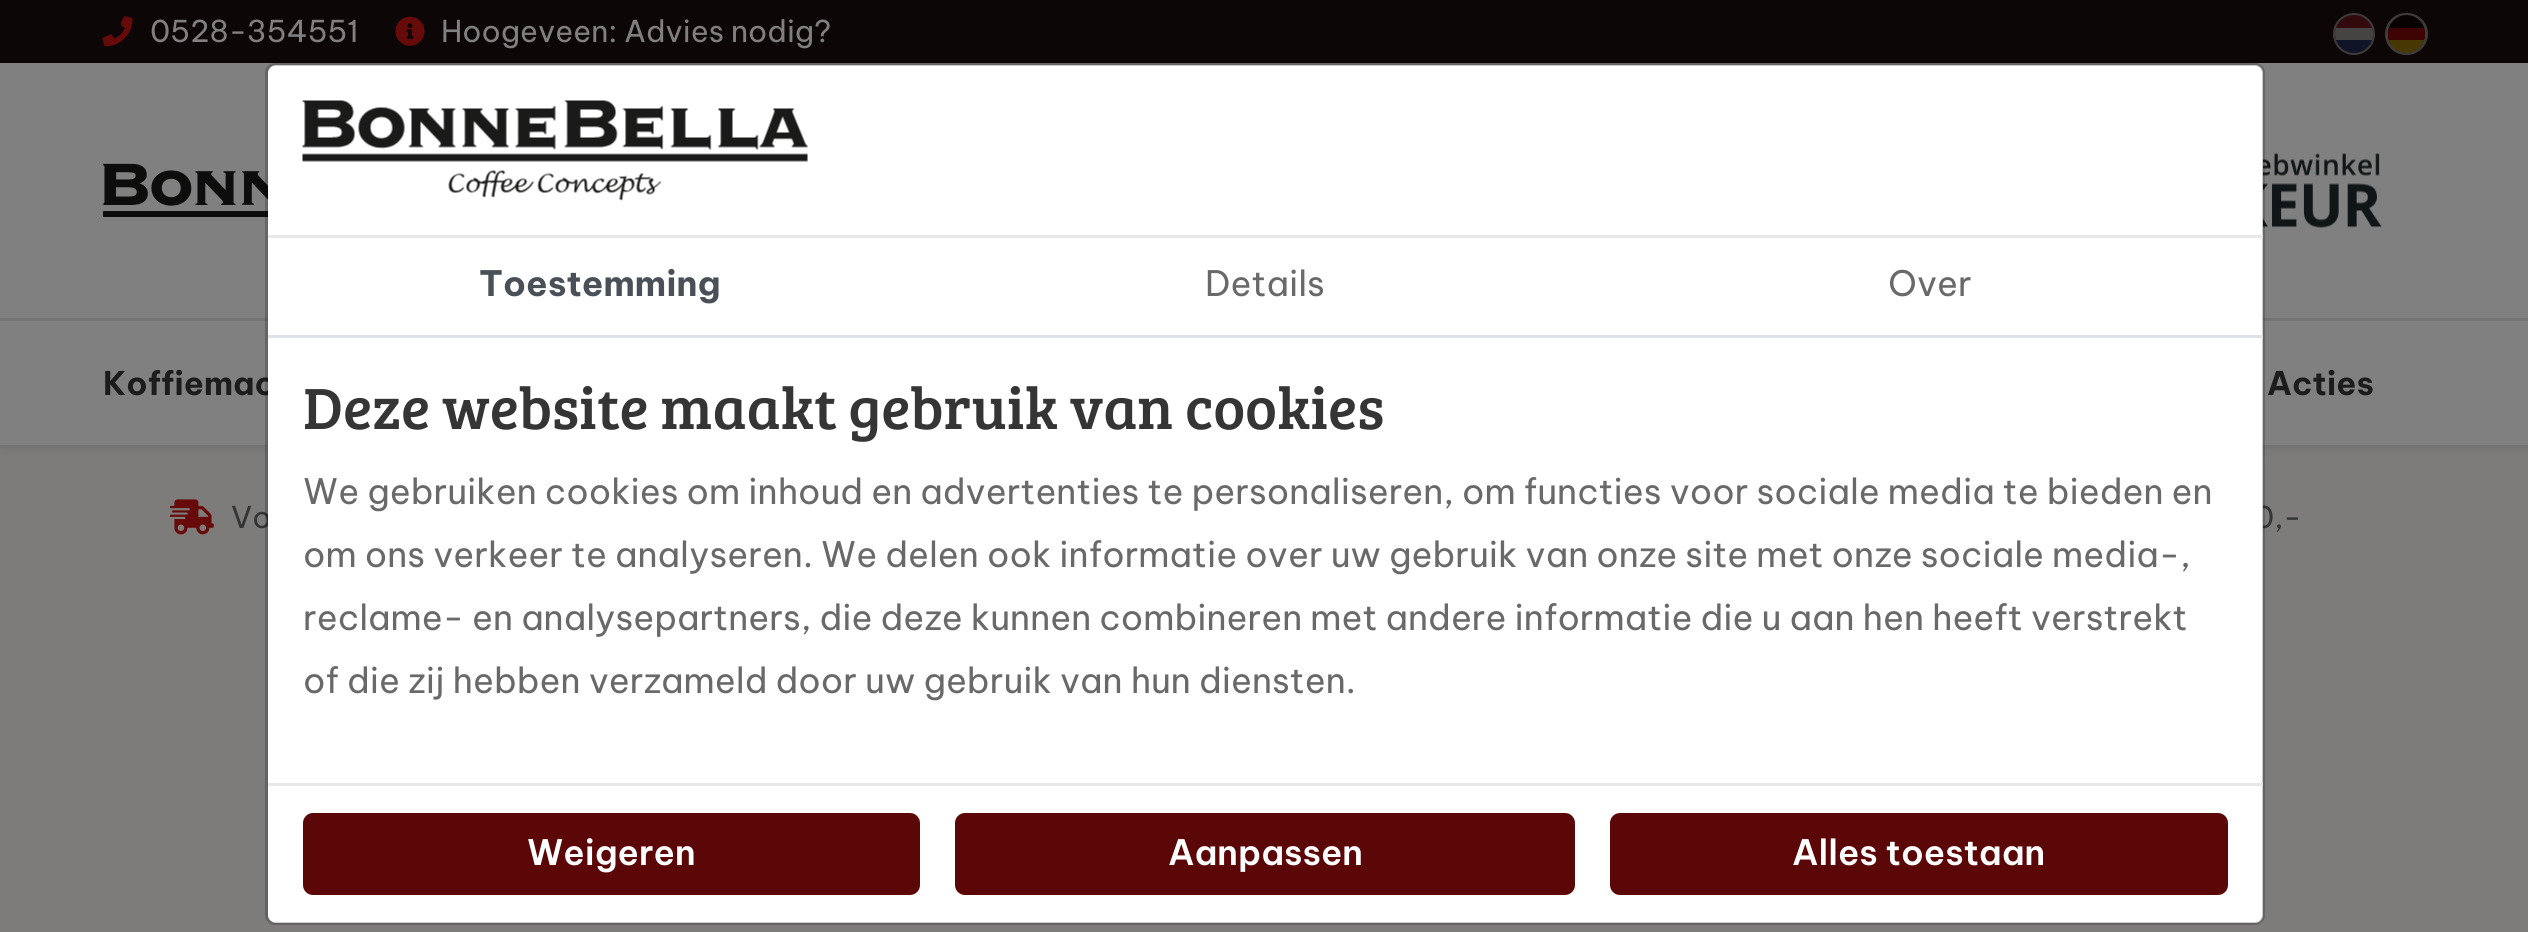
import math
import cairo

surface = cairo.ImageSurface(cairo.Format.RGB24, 2528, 932)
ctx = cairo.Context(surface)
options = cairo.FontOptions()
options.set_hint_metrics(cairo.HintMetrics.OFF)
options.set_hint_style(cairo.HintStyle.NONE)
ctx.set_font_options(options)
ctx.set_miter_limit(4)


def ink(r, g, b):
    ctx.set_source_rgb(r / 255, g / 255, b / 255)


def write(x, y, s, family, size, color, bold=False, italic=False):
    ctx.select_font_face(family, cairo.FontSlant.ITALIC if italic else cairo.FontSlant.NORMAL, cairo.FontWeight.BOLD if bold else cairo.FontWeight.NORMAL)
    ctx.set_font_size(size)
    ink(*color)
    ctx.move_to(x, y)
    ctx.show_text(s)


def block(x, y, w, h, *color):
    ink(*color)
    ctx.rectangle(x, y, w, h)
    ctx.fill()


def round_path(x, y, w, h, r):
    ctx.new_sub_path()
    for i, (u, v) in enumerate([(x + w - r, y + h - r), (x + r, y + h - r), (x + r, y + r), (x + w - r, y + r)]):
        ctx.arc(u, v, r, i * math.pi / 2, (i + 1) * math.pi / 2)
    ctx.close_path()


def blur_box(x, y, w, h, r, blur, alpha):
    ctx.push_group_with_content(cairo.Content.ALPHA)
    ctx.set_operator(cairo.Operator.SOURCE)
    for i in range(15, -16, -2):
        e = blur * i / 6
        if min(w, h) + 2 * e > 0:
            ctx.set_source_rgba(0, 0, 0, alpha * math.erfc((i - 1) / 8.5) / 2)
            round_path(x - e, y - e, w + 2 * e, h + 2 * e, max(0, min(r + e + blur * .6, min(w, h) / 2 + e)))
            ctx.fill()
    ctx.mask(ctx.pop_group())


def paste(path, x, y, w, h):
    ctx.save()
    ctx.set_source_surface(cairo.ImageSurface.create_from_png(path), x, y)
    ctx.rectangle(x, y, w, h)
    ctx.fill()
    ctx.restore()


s1 = dict(family="Be Vietnam Pro", size=30, color=(128, 128, 128))
s2 = dict(family="Be Vietnam Pro", size=32.5, color=(28, 28, 28), bold=True)
s3 = dict(family="Be Vietnam Pro", size=30, color=(53, 53, 53))
s4 = dict(family="Be Vietnam Pro", size=35, color=(73, 80, 87), bold=True)
s5 = dict(family="Be Vietnam Pro", size=35, color=(105, 105, 105))
s6 = dict(family="Bree Serif", size=60, color=(53, 53, 53))
s7 = dict(family="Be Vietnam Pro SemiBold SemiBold", size=35, color=(255, 255, 255))

ink(126, 124, 123)
ctx.paint()
block(0, 0, 2528, 63, 13, 6, 6)
paste("pic1.png", 102, 16, 31, 31)
write(150, 42, "0528-354551", **s1)
paste("pic2.png", 395, 16, 30, 30)
write(441, 42, "Hoogeveen: Advies nodig?", **s1)
ctx.new_path()
ctx.arc(2354, 34, 19.5, 0, 2 * math.pi)
ink(62, 59, 59)
ctx.set_line_width(3)
ctx.stroke()
round_path(2386.5, 14.5, 40, 39, 19.5)
ctx.stroke()
ink(15, 21, 38)
ctx.arc(2354, 34, 19, 0, 2 * math.pi)
ctx.fill()
ctx.save()
round_path(2335, 15, 38, 38, 19)
ctx.clip()
ink(70, 67, 67)
ctx.new_path()
ctx.move_to(2354, 15)
ctx.curve_to(2364.5, 15, 2373, 23.5, 2373, 34)
ctx.line_to(2373, 40)
ctx.line_to(2335, 40)
ctx.line_to(2335, 34)
ctx.curve_to(2335, 23.5, 2343.5, 15, 2354, 15)
ctx.close_path()
ctx.fill()
block(2336, 15, 36, 13, 50, 10, 13)
ctx.restore()
ctx.save()
round_path(2388, 15, 37, 38, 18.5)
ctx.clip()
block(2388, 15, 37, 13, 7, 3, 3)
block(2388, 28, 37, 12, 62, 3, 3)
block(2388, 40, 37, 13, 70, 55, 3)
ctx.restore()
ink(0, 0, 0)
blur_box(0, 318, 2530, 130, 0, 6, 0.1)
block(0, 63, 2528, 255, 128, 128, 128)
paste("pic3.png", 103, 163, 165, 54)
paste("pic4.png", 2263, 139, 119, 102)
block(0, 321, 2528, 124, 128, 128, 128)
block(0, 318, 2528, 3, 116, 116, 116)
block(0, 445, 2528, 3, 116, 116, 116)
write(103, 395, "Koffiemac", **s2)
write(2267, 395, "Acties", **s2)
write(231, 528, "Vo", **s3)
write(2254, 528, "0,-", **s3)
ink(255, 255, 255)
round_path(268, 65, 1995, 858, 8)
ctx.fill()
round_path(266.5, 64.5, 1997, 859, 8.5)
ctx.set_source_rgba(0, 0, 0, 0.2)
ctx.stroke()
block(268, 235, 1995, 3, 232, 232, 232)
paste("pic5.png", 302, 100, 506, 101)
block(268, 335, 1995, 3, 222, 226, 230)
write(479, 296, "Toestemming", **s4)
write(1205, 296, "Details", **s5)
write(1888, 296, "Over", **s5)
write(303, 429, "Deze website maakt gebruik van cookies", **s6)
write(303, 504, "We gebruiken cookies om inhoud en advertenties te personaliseren, om functies voor sociale media te bieden en", **s5)
write(303, 567, "om ons verkeer te analyseren. We delen ook informatie over uw gebruik van onze site met onze sociale media-,", **s5)
write(303, 630, "reclame- en analysepartners, die deze kunnen combineren met andere informatie die u aan hen heeft verstrekt", **s5)
write(303, 693, "of die zij hebben verzameld door uw gebruik van hun diensten.", **s5)
block(268, 783, 1995, 3, 232, 232, 232)
ink(91, 7, 7)
round_path(304.5, 814.5, 614, 79, 8.5)
ctx.fill_preserve()
ctx.stroke()
write(527, 865, "Weigeren", **s7)
ink(91, 7, 7)
round_path(956.5, 814.5, 617, 79, 8.5)
ctx.fill_preserve()
ctx.stroke()
write(1168, 865, "Aanpassen", **s7)
ink(91, 7, 7)
round_path(1611.5, 814.5, 615, 79, 8.5)
ctx.fill_preserve()
ctx.stroke()
write(1792, 865, "Alles toestaan", **s7)
paste("pic6.png", 170, 499, 44, 36)
surface.write_to_png("screenshot.png")
